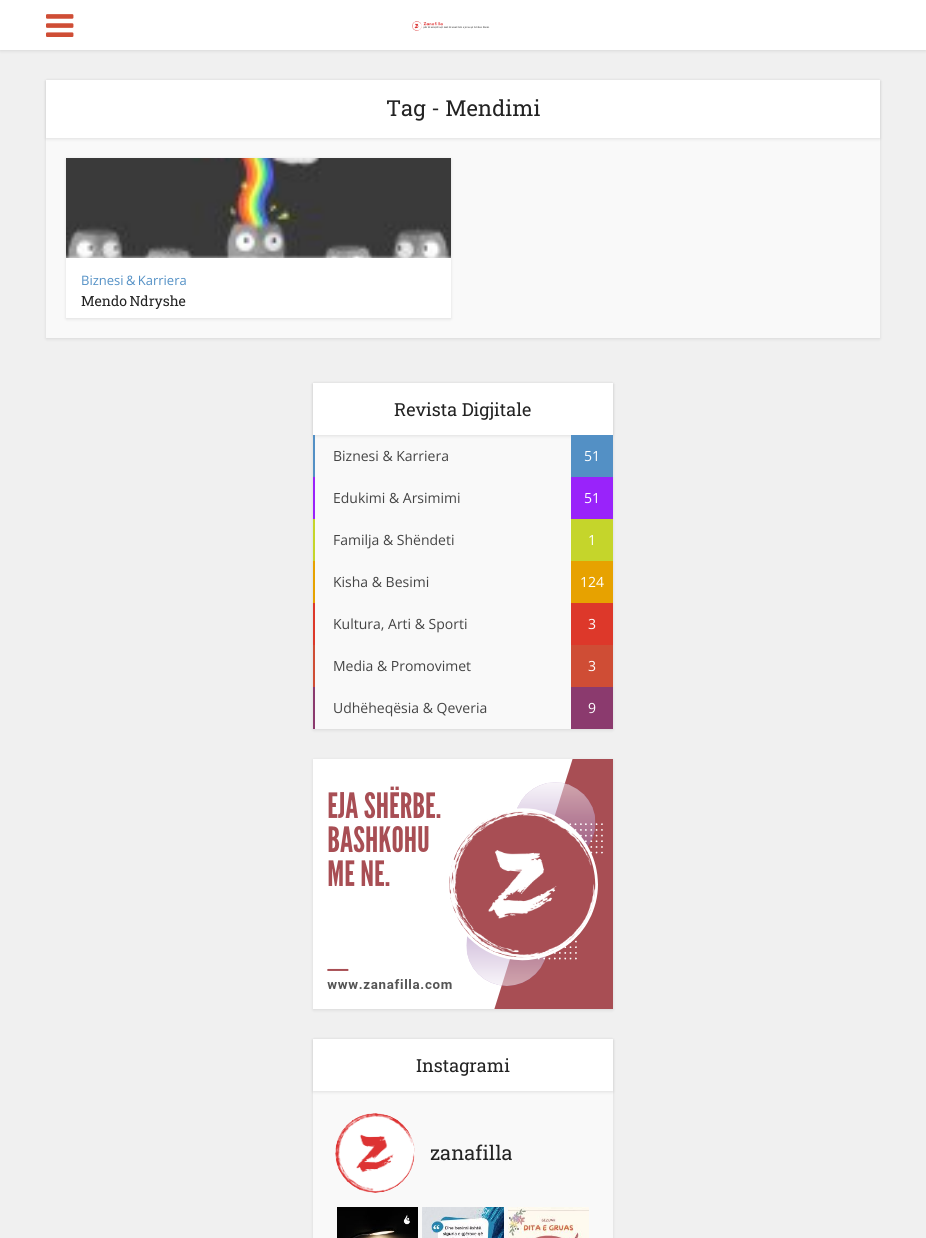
import math
import cairo

surface = cairo.ImageSurface(cairo.Format.RGB24, 926, 1238)
ctx = cairo.Context(surface)
options = cairo.FontOptions()
options.set_hint_metrics(cairo.HintMetrics.OFF)
options.set_hint_style(cairo.HintStyle.NONE)
ctx.set_font_options(options)
ctx.set_miter_limit(4)


def ink(r, g, b):
    ctx.set_source_rgb(r / 255, g / 255, b / 255)


def write(x, y, s, family, size, color, bold=False, italic=False):
    ctx.select_font_face(family, cairo.FontSlant.ITALIC if italic else cairo.FontSlant.NORMAL, cairo.FontWeight.BOLD if bold else cairo.FontWeight.NORMAL)
    ctx.set_font_size(size)
    ink(*color)
    ctx.move_to(x, y)
    ctx.show_text(s)


def write_spaced(x, y, s, letter, word):
    ctx.move_to(x, y)
    for ch in s:
        ctx.show_text(ch)
        ctx.rel_move_to(letter + word * (ch == ' '), 0)


def block(x, y, w, h, *color):
    ink(*color)
    ctx.rectangle(x, y, w, h)
    ctx.fill()


def round_path(x, y, w, h, r):
    ctx.new_sub_path()
    for i, (u, v) in enumerate([(x + w - r, y + h - r), (x + r, y + h - r), (x + r, y + r), (x + w - r, y + r)]):
        ctx.arc(u, v, r, i * math.pi / 2, (i + 1) * math.pi / 2)
    ctx.close_path()


def blur_box(x, y, w, h, r, blur, alpha):
    ctx.push_group_with_content(cairo.Content.ALPHA)
    ctx.set_operator(cairo.Operator.SOURCE)
    for i in range(15, -16, -2):
        e = blur * i / 6
        if min(w, h) + 2 * e > 0:
            ctx.set_source_rgba(0, 0, 0, alpha * math.erfc((i - 1) / 8.5) / 2)
            round_path(x - e, y - e, w + 2 * e, h + 2 * e, max(0, min(r + e + blur * .6, min(w, h) / 2 + e)))
            ctx.fill()
    ctx.mask(ctx.pop_group())


def paste(path, x, y, w, h):
    ctx.save()
    ctx.set_source_surface(cairo.ImageSurface.create_from_png(path), x, y)
    ctx.rectangle(x, y, w, h)
    ctx.fill()
    ctx.restore()


s1 = dict(family="Roboto Slab", size=22, color=(35, 35, 35))
s2 = dict(family="Roboto Slab", size=18, color=(35, 35, 35))
s3 = dict(family="Open Sans", size=14, color=(68, 68, 68))
s4 = dict(family="Open Sans", size=14, color=(255, 255, 255))
s5 = dict(family="Roboto Slab", size=20, color=(35, 35, 35))

ink(240, 240, 240)
ctx.paint()
ink(0, 0, 0)
blur_box(0, 1, 926, 50, 0, 1.5, 0.1)
block(0, 0, 926, 50, 255, 255, 255)
paste("pic1.png", 46, 14, 28, 23)
paste("pic2.png", 412, 21, 78, 10)
ink(0, 0, 0)
blur_box(46, 81, 834, 258, 0, 1.5, 0.1)
block(46, 138, 834, 200, 249, 249, 249)
ink(0, 0, 0)
blur_box(46, 81, 834, 58, 0, 1.5, 0.1)
block(46, 80, 834, 58, 255, 255, 255)
write(386, 116, "Tag - Mendimi", **s1)
ink(0, 0, 0)
blur_box(66, 159, 385, 160, 0, 1.5, 0.1)
block(66, 255, 385, 63, 255, 255, 255)
paste("pic3.png", 66, 158, 385, 100)
ctx.select_font_face("Open Sans")
ctx.set_font_size(13)
ink(83, 144, 197)
write_spaced(81, 285, "Biznesi & Karriera", 0, -1)
ctx.select_font_face("Roboto Slab")
ctx.set_font_size(14)
ink(35, 35, 35)
write_spaced(81, 306, "Mendo Ndryshe", 0, -1)
ink(0, 0, 0)
blur_box(313, 384, 300, 346, 0, 1.5, 0.1)
block(315, 435, 256, 294, 249, 249, 249)
ink(0, 0, 0)
blur_box(313, 384, 300, 52, 0, 1.5, 0.1)
block(313, 383, 300, 52, 255, 255, 255)
write(394, 416, "Revista Digjitale", **s2)
block(313, 435, 2, 42, 83, 144, 197)
write(333, 461, "Biznesi & Karriera", **s3)
block(571, 435, 42, 42, 83, 144, 197)
write(584, 461, "51", **s4)
block(313, 477, 2, 42, 153, 35, 250)
write(333, 503, "Edukimi & Arsimimi", **s3)
block(571, 477, 42, 42, 153, 35, 250)
write(584, 503, "51", **s4)
block(313, 519, 2, 42, 197, 213, 43)
write(333, 545, "Familja & Shëndeti", **s3)
block(571, 519, 42, 42, 197, 213, 43)
write(588, 545, "1", **s4)
block(313, 561, 2, 42, 231, 162, 0)
write(333, 587, "Kisha & Besimi", **s3)
block(571, 561, 42, 42, 231, 162, 0)
write(580, 587, "124", **s4)
block(313, 603, 2, 42, 221, 56, 42)
write(333, 629, "Kultura, Arti & Sporti", **s3)
block(571, 603, 42, 42, 221, 56, 42)
write(588, 629, "3", **s4)
block(313, 645, 2, 42, 207, 77, 53)
write(333, 671, "Media & Promovimet", **s3)
block(571, 645, 42, 42, 207, 77, 53)
write(588, 671, "3", **s4)
block(313, 687, 2, 42, 139, 58, 110)
write(333, 713, "Udhëheqësia & Qeveria", **s3)
block(571, 687, 42, 42, 139, 58, 110)
write(588, 713, "9", **s4)
ink(0, 0, 0)
blur_box(313, 760, 300, 250, 0, 1.5, 0.1)
paste("pic4.png", 313, 759, 300, 250)
blur_box(313, 1040, 300, 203, 0, 1.5, 0.1)
block(313, 1091, 300, 147, 249, 249, 249)
ink(0, 0, 0)
blur_box(313, 1040, 300, 52, 0, 1.5, 0.1)
block(313, 1039, 300, 52, 255, 255, 255)
write(416, 1072, "Instagrami", **s2)
paste("pic5.png", 335, 1113, 80, 80)
write(430, 1160, "zanafilla", **s5)
paste("pic6.png", 337, 1207, 81, 31)
paste("pic7.png", 422, 1207, 82, 31)
paste("pic8.png", 508, 1207, 81, 31)
surface.write_to_png("screenshot.png")
